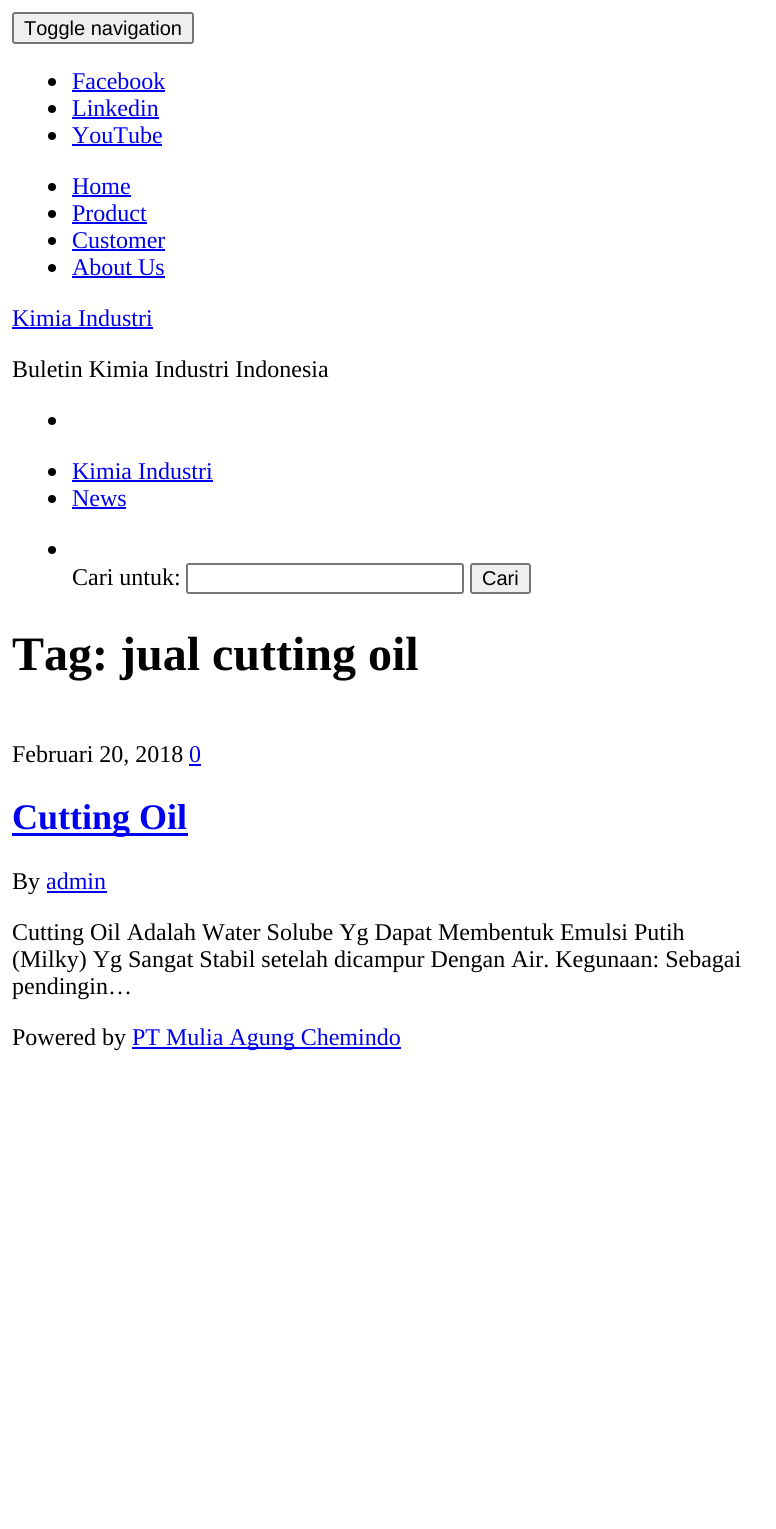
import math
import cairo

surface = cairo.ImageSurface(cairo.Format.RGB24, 776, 1529)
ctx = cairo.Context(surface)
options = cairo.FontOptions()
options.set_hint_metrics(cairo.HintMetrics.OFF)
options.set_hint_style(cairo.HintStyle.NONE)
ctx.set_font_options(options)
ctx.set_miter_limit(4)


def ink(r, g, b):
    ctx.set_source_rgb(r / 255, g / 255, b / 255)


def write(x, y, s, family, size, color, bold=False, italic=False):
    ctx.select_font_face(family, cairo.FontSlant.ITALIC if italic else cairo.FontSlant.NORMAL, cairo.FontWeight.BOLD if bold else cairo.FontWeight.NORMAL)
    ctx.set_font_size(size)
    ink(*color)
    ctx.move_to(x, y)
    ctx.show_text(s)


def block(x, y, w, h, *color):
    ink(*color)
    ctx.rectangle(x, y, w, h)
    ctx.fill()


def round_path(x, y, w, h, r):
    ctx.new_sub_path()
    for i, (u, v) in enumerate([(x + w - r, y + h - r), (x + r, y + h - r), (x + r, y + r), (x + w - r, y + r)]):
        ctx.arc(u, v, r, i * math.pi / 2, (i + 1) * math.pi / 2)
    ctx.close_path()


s1 = dict(family="Liberation Sans", size=20, color=(0, 0, 0))
s2 = dict(family="Liberation Serif", size=24, color=(0, 0, 238))
s3 = dict(family="Liberation Serif", size=24, color=(0, 0, 0))
s4 = dict(family="Liberation Serif", size=48, color=(0, 0, 0), bold=True)
s5 = dict(family="Liberation Serif", size=36, color=(0, 0, 238), bold=True)

ink(255, 255, 255)
ctx.paint()
ink(239, 239, 239)
round_path(13, 13, 180, 30, 2)
ctx.fill_preserve()
ink(118, 118, 118)
ctx.stroke()
write(24, 35, "Toggle navigation", **s1)
ctx.new_path()
ctx.arc(52, 82, 4, 0, 2 * math.pi)
ctx.fill()
write(72, 89, "Facebook", **s2)
block(72, 90, 93, 2, 0, 0, 238)
ink(0, 0, 0)
ctx.new_path()
ctx.arc(52, 109, 4, 0, 2 * math.pi)
ctx.fill()
write(72, 116, "Linkedin", **s2)
block(72, 117, 87, 2, 0, 0, 238)
ink(0, 0, 0)
ctx.new_path()
ctx.arc(52, 136, 4, 0, 2 * math.pi)
ctx.fill()
write(72, 143, "YouTube", **s2)
block(72, 144, 90, 2, 0, 0, 238)
ink(0, 0, 0)
ctx.new_path()
ctx.arc(52, 187, 4, 0, 2 * math.pi)
ctx.fill()
write(72, 194, "Home", **s2)
block(72, 195, 59, 2, 0, 0, 238)
ink(0, 0, 0)
ctx.new_path()
ctx.arc(52, 214, 4, 0, 2 * math.pi)
ctx.fill()
write(72, 221, "Product", **s2)
block(72, 222, 75, 2, 0, 0, 238)
ink(0, 0, 0)
ctx.new_path()
ctx.arc(52, 241, 4, 0, 2 * math.pi)
ctx.fill()
write(72, 248, "Customer", **s2)
block(72, 249, 93, 2, 0, 0, 238)
ink(0, 0, 0)
ctx.new_path()
ctx.arc(52, 268, 4, 0, 2 * math.pi)
ctx.fill()
write(72, 275, "About Us", **s2)
block(72, 276, 93, 2, 0, 0, 238)
write(12, 326, "Kimia Industri", **s2)
block(12, 327, 141, 2, 0, 0, 238)
write(12, 377, "Buletin Kimia Industri Indonesia", **s3)
ctx.new_path()
ctx.arc(52, 421, 4, 0, 2 * math.pi)
ctx.fill()
ctx.arc(52, 472, 4, 0, 2 * math.pi)
ctx.fill()
write(72, 479, "Kimia Industri", **s2)
block(72, 480, 141, 2, 0, 0, 238)
ink(0, 0, 0)
ctx.new_path()
ctx.arc(52, 499, 4, 0, 2 * math.pi)
ctx.fill()
write(72, 506, "News", **s2)
block(72, 507, 54, 2, 0, 0, 238)
ink(0, 0, 0)
ctx.new_path()
ctx.arc(52, 550, 4, 0, 2 * math.pi)
ctx.fill()
write(72, 585, "Cari untuk:", **s3)
round_path(187, 564, 276, 29, 2)
ink(118, 118, 118)
ctx.stroke()
ink(239, 239, 239)
round_path(471, 564, 59, 29, 2)
ctx.fill_preserve()
ink(118, 118, 118)
ctx.stroke()
write(482, 585, "Cari", **s1)
write(12, 670, "Tag: jual cutting oil", **s4)
write(12, 762, "Februari 20, 2018", **s3)
write(189, 762, "0", **s2)
block(189, 764, 12, 2, 0, 0, 238)
block(12, 833, 176, 3, 0, 0, 238)
write(12, 829, "Cutting Oil", **s5)
write(12, 889, "By", **s3)
write(46, 889, "admin", **s2)
block(47, 891, 60, 2, 0, 0, 238)
write(12, 940, "Cutting Oil Adalah Water Solube Yg Dapat Membentuk Emulsi Putih", **s3)
write(12, 967, "(Milky) Yg Sangat Stabil setelah dicampur Dengan Air. Kegunaan: Sebagai", **s3)
write(12, 994, "pendingin…", **s3)
write(12, 1045, "Powered by", **s3)
block(132, 1047, 269, 2, 0, 0, 238)
write(132, 1045, "PT Mulia Agung Chemindo", **s2)
surface.write_to_png("screenshot.png")
